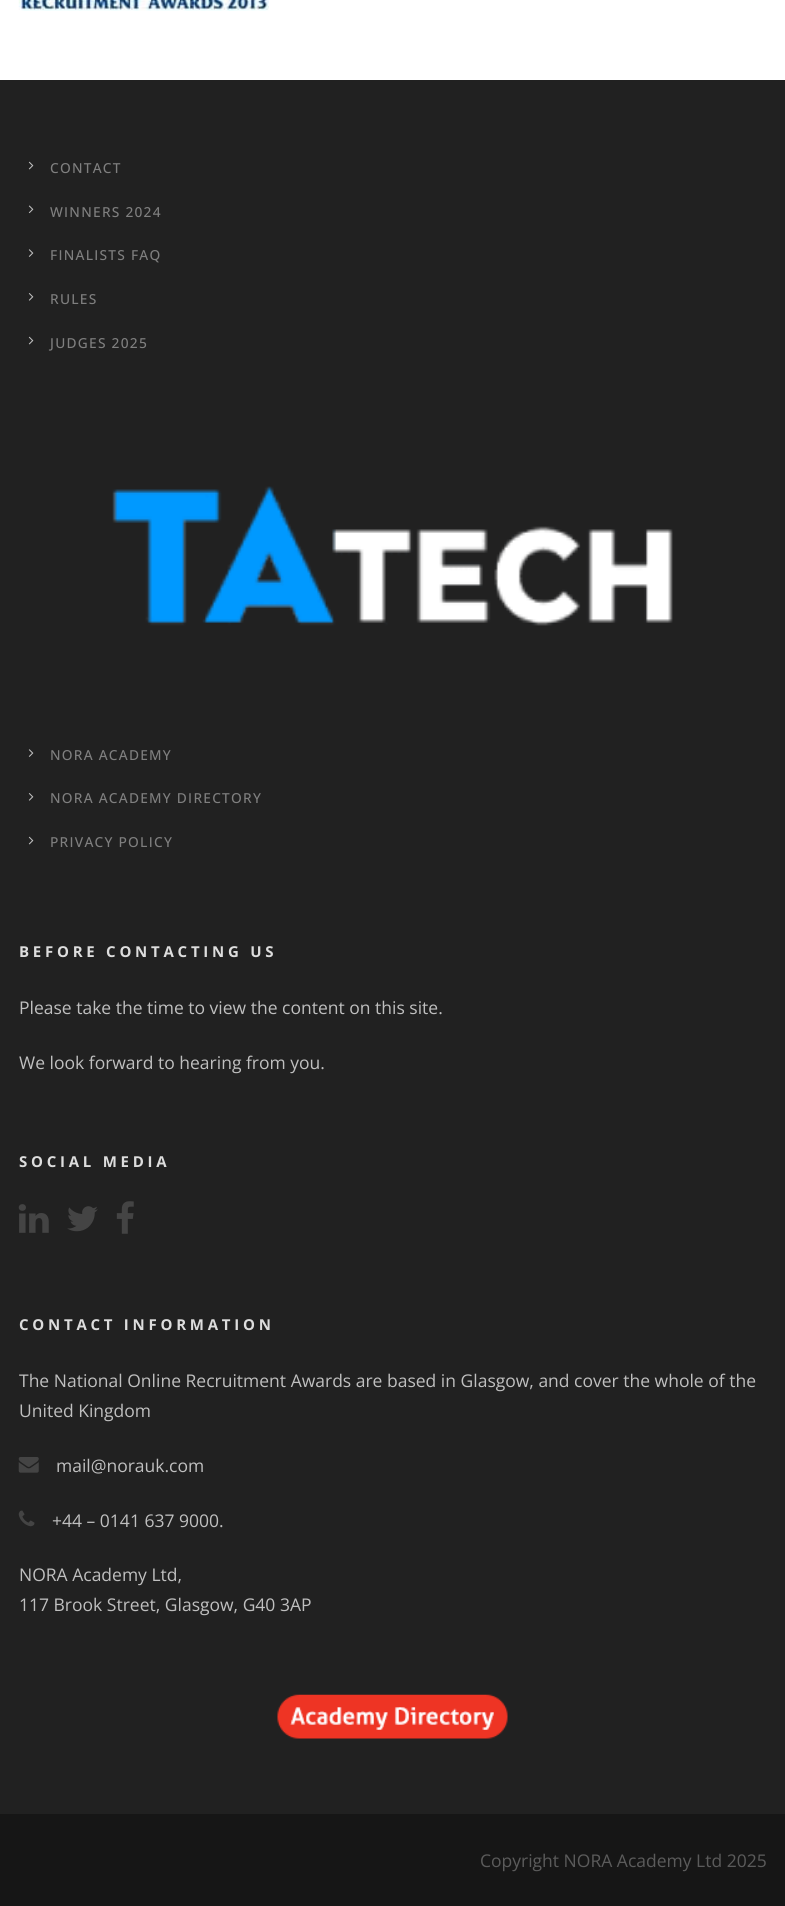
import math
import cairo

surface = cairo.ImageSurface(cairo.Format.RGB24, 785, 1906)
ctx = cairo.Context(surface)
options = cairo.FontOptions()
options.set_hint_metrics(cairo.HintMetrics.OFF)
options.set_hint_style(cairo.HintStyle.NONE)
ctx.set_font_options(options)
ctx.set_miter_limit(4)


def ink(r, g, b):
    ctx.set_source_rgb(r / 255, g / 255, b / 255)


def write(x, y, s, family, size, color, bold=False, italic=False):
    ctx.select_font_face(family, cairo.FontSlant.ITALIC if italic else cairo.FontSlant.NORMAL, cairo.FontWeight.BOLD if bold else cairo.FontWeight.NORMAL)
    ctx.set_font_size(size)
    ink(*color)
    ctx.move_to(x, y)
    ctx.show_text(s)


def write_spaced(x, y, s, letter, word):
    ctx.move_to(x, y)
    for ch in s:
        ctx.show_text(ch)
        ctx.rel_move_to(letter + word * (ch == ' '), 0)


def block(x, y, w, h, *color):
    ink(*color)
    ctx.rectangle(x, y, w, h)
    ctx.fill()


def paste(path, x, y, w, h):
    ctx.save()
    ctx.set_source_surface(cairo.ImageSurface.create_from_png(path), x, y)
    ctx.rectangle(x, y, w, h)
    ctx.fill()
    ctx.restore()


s1 = dict(family="Open Sans", size=17.5, color=(191, 191, 191))
s2 = dict(family="Open Sans", size=17.5, color=(91, 91, 91))

ink(255, 255, 255)
ctx.paint()
paste("pic1.png", 18, 0, 251, 11)
block(0, 80, 785, 1734, 33, 33, 33)
paste("pic2.png", 28, 161, 6, 9)
ctx.select_font_face("Open Sans Medium")
ctx.set_font_size(13.75)
ink(127, 127, 127)
write_spaced(50, 173, "CONTACT", 1.25, 0)
paste("pic3.png", 28, 205, 6, 9)
write_spaced(50, 217, "WINNERS 2024", 1.25, 0)
paste("pic4.png", 28, 249, 6, 8)
write_spaced(50, 260, "FINALISTS FAQ", 1.25, 0)
paste("pic5.png", 28, 293, 6, 8)
write_spaced(50, 304, "RULES", 1.25, 0)
paste("pic2.png", 28, 336, 6, 9)
write_spaced(50, 348, "JUDGES 2025", 1.25, 0)
paste("pic6.png", 112, 486, 561, 140)
paste("pic4.png", 28, 749, 6, 8)
write_spaced(50, 760, "NORA ACADEMY", 1.25, 0)
paste("pic5.png", 28, 793, 6, 8)
write_spaced(50, 803, "NORA ACADEMY DIRECTORY", 1.25, 0)
paste("pic2.png", 28, 836, 6, 9)
write_spaced(50, 847, "PRIVACY POLICY", 1.25, 0)
ctx.select_font_face("Open Sans", cairo.FontSlant.NORMAL, cairo.FontWeight.BOLD)
ctx.set_font_size(15)
ink(221, 221, 221)
write_spaced(19, 957, "BEFORE CONTACTING US", 3.75, 0)
write(19, 1014, "Please take the time to view the content on this site.", **s1)
write(19, 1069, "We look forward to hearing from you.", **s1)
ctx.select_font_face("Open Sans", cairo.FontSlant.NORMAL, cairo.FontWeight.BOLD)
ctx.set_font_size(15)
ink(221, 221, 221)
write_spaced(19, 1167, "SOCIAL MEDIA", 3.75, 0)
paste("pic7.png", 18, 1204, 31, 29)
paste("pic8.png", 67, 1206, 31, 26)
paste("pic9.png", 116, 1201, 18, 33)
write_spaced(19, 1330, "CONTACT INFORMATION", 3.75, 0)
write(19, 1387, "The National Online Recruitment Awards are based in Glasgow, and cover the whole of the", **s1)
write(19, 1417, "United Kingdom", **s1)
paste("pic10.png", 18, 1457, 21, 16)
write(56, 1472, "mail@norauk.com", **s1)
paste("pic11.png", 18, 1510, 17, 17)
write(52, 1527, "+44 – 0141 637 9000.", **s1)
write(19, 1581, "NORA Academy Ltd,", **s1)
write(19, 1611, "117 Brook Street, Glasgow, G40 3AP", **s1)
paste("pic12.png", 277, 1694, 231, 45)
block(0, 1814, 785, 92, 22, 22, 22)
write(480, 1867, "Copyright NORA Academy Ltd 2025", **s2)
surface.write_to_png("screenshot.png")
